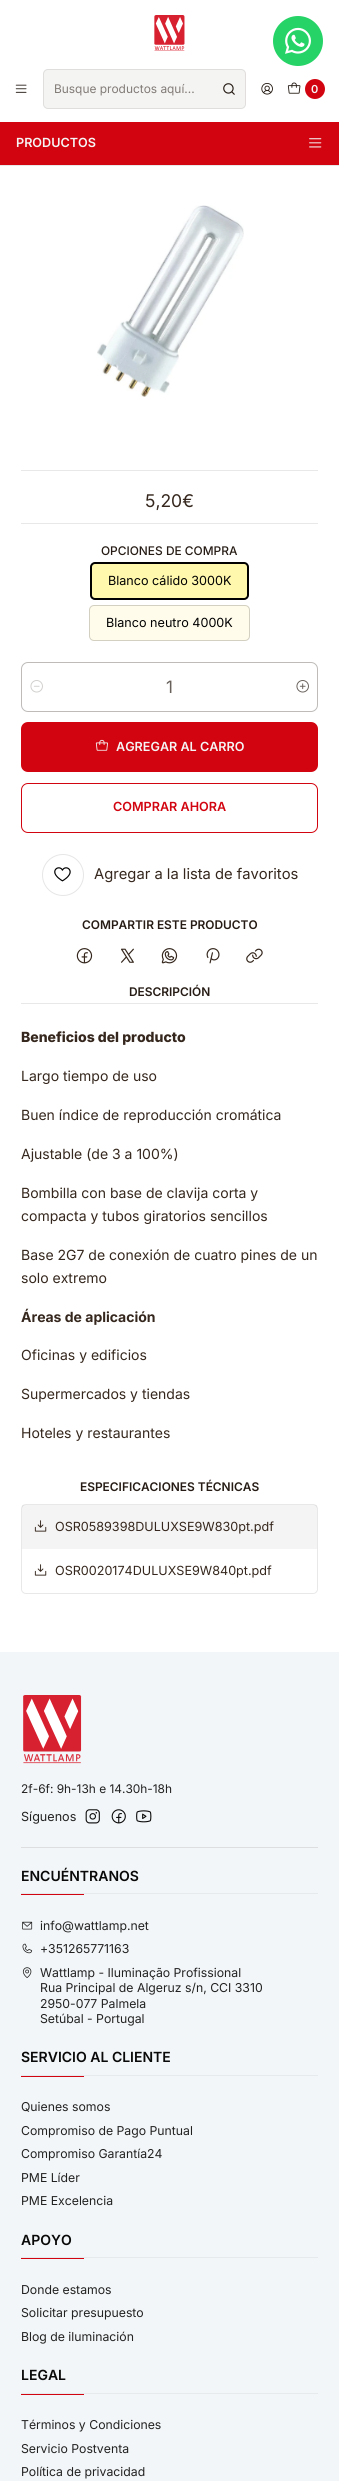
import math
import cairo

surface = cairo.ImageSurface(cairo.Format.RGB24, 339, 2481)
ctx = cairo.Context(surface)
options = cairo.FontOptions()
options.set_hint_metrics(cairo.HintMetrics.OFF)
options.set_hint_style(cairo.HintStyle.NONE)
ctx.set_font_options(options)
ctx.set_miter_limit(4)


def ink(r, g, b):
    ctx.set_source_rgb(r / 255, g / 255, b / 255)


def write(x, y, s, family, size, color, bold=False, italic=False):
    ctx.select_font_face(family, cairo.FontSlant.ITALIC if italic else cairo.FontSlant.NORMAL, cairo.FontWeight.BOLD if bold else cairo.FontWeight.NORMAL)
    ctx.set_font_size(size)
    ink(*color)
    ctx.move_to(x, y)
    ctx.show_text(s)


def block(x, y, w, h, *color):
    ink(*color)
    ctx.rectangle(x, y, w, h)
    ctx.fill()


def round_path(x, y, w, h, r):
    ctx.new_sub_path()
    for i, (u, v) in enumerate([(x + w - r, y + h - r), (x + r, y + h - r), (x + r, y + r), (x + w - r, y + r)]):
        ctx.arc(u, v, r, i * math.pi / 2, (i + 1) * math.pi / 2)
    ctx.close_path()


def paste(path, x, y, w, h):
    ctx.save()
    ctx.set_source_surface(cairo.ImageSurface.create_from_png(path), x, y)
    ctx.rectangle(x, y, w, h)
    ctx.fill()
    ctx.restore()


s1 = dict(family="Inter", size=11.9, color=(129, 123, 118))
s2 = dict(family="Inter SemiBold", size=11, color=(245, 245, 245))
s3 = dict(family="Inter SemiBold", size=12.6, color=(245, 245, 245))
s4 = dict(family="Inter", size=17.5, color=(53, 39, 29))
s5 = dict(family="Inter Medium", size=11.9, color=(38, 28, 21))
s6 = dict(family="Inter", size=12.6, color=(1, 1, 1))
s7 = dict(family="Inter", size=17, color=(103, 96, 91))
s8 = dict(family="Inter SemiBold", size=12.6, color=(210, 4, 15))
s9 = dict(family="Inter", size=14.75, color=(53, 39, 29))
s10 = dict(family="Inter SemiBold", size=11.9, color=(38, 28, 21))
s11 = dict(family="Inter ExtraBold", size=14, color=(53, 39, 29))
s12 = dict(family="Inter", size=14, color=(53, 39, 29))
s13 = dict(family="Inter", size=14, color=(53, 39, 29), bold=True)
s14 = dict(family="Inter", size=12.6, color=(53, 39, 29))
s15 = dict(family="Inter", size=11.9, color=(34, 34, 34))
s16 = dict(family="Inter", size=12.6, color=(34, 34, 34))
s17 = dict(family="Inter SemiBold", size=14, color=(9, 9, 9))
s18 = dict(family="Inter", size=12.25, color=(34, 34, 34))

ink(255, 255, 255)
ctx.paint()
ink(37, 211, 102)
ctx.arc(298, 41, 25, 0, 2 * math.pi)
ctx.fill()
paste("pic1.png", 285, 27, 26, 27)
block(0, 165, 339, 1, 233, 232, 232)
paste("pic2.png", 154, 15, 31, 36)
paste("pic3.png", 15, 84, 12, 9)
ink(244, 244, 243)
round_path(43, 69, 203, 40, 5)
ctx.fill()
round_path(43.5, 69.5, 202, 39, 4.5)
ctx.set_source_rgba(0.149, 0.11, 0.082, 0.1)
ctx.set_line_width(1)
ctx.stroke()
write(54, 93, "Busque productos aquí...", **s1)
paste("pic4.png", 223, 83, 12, 12)
paste("pic5.png", 261, 83, 12, 12)
paste("pic6.png", 287, 82, 14, 12)
ink(210, 4, 15)
ctx.arc(315, 89, 10, 0, 2 * math.pi)
ctx.fill()
write(311, 93, "0", **s2)
block(0, 122, 339, 43, 210, 4, 15)
write(16, 147, "PRODUCTOS", **s3)
paste("pic7.png", 309, 138, 13, 10)
paste("pic8.png", 97, 205, 147, 192)
block(21, 470, 297, 1, 233, 232, 232)
write(145, 507, "5,20€", **s4)
block(21, 523, 297, 1, 233, 232, 232)
write(101, 555, "OPCIONES DE COMPRA", **s5)
ink(255, 248, 173)
round_path(91, 563, 157, 36, 4)
ctx.fill_preserve()
ink(1, 1, 1)
ctx.set_line_width(2)
ctx.stroke()
write(108, 585, "Blanco cálido 3000K", **s6)
ink(255, 252, 236)
round_path(89, 605, 161, 36, 5)
ctx.fill()
round_path(89.5, 605.5, 160, 35, 4.5)
ctx.set_source_rgba(0.149, 0.11, 0.082, 0.2)
ctx.set_line_width(1)
ctx.stroke()
write(106, 627, "Blanco neutro 4000K", **s6)
round_path(21.5, 662.5, 296, 49, 6.5)
ink(190, 187, 185)
ctx.stroke()
paste("pic9.png", 30, 680, 13, 13)
write(166, 693, "1", **s7)
paste("pic10.png", 296, 680, 13, 13)
ink(210, 4, 15)
round_path(21, 722, 297, 50, 7)
ctx.fill()
paste("pic11.png", 95, 739, 13, 12)
write(116, 751, "AGREGAR AL CARRO", **s3)
round_path(21.5, 783.5, 296, 49, 6.5)
ink(210, 4, 15)
ctx.stroke()
write(113, 811, "COMPRAR AHORA", **s8)
ctx.new_path()
ctx.arc(63, 875, 20.5, 0, 2 * math.pi)
ink(230, 230, 230)
ctx.stroke()
paste("pic12.png", 54, 867, 17, 15)
write(94, 879, "Agregar a la lista de favoritos", **s9)
write(82, 929, "COMPARTIR ESTE PRODUCTO", **s10)
paste("pic13.png", 76, 948, 17, 16)
paste("pic14.png", 121, 948, 13, 15)
paste("pic15.png", 161, 948, 17, 16)
paste("pic16.png", 206, 948, 14, 16)
paste("pic17.png", 246, 948, 17, 15)
block(21, 1003, 297, 1, 233, 232, 232)
write(129, 996, "DESCRIPCIÓN", **s10)
write(21, 1042, "Beneficios del producto", **s11)
write(21, 1081, "Largo tiempo de uso", **s12)
write(21, 1120, "Buen índice de reproducción cromática", **s12)
write(21, 1159, "Ajustable (de 3 a 100%)", **s12)
write(21, 1198, "Bombilla con base de clavija corta y", **s12)
write(21, 1221, "compacta y tubos giratorios sencillos", **s12)
write(21, 1260, "Base 2G7 de conexión de cuatro pines de un", **s12)
write(21, 1283, "solo extremo", **s12)
write(21, 1322, "Áreas de aplicación", **s13)
write(21, 1360, "Oficinas y edificios", **s12)
write(21, 1399, "Supermercados y tiendas", **s12)
write(21, 1438, "Hoteles y restaurantes", **s12)
write(80, 1491, "ESPECIFICACIONES TÉCNICAS", **s10)
round_path(21.5, 1504.5, 296, 89, 4.5)
ink(233, 232, 232)
ctx.stroke()
ctx.set_source_rgba(0.208, 0.153, 0.114, 0.05)
ctx.rectangle(22, 1505, 295, 44)
ctx.fill()
paste("pic18.png", 34, 1520, 13, 12)
write(55, 1531, "OSR0589398DULUXSE9W830pt.pdf", **s14)
paste("pic19.png", 34, 1564, 13, 12)
write(55, 1575, "OSR0020174DULUXSE9W840pt.pdf", **s14)
block(0, 1652, 339, 829, 243, 246, 248)
paste("pic20.png", 23, 1695, 59, 69)
write(21, 1793, "2f-6f: 9h-13h e 14.30h-18h", **s15)
write(21, 1821, "Síguenos", **s16)
paste("pic21.png", 85, 1809, 15, 15)
paste("pic22.png", 111, 1809, 15, 15)
paste("pic23.png", 136, 1810, 16, 13)
block(21, 1847, 297, 1, 220, 222, 224)
block(21, 1893, 297, 1, 231, 234, 236)
write(21, 1881, "ENCUÉNTRANOS", **s17)
block(21, 1894, 63, 1, 210, 4, 15)
paste("pic24.png", 22, 1921, 11, 9)
write(40, 1930, "info@wattlamp.net", **s18)
paste("pic25.png", 22, 1943, 11, 11)
write(40, 1953, "+351265771163", **s18)
paste("pic26.png", 22, 1967, 10, 11)
write(40, 1977, "Wattlamp - Iluminação Profissional", **s18)
write(40, 1992, "Rua Principal de Algeruz s/n, CCI 3310", **s18)
write(40, 2008, "2950-077 Palmela", **s18)
write(40, 2023, "Setúbal - Portugal", **s18)
block(21, 2075, 297, 1, 231, 234, 236)
write(21, 2062, "SERVICIO AL CLIENTE", **s17)
block(21, 2076, 63, 1, 210, 4, 15)
write(21, 2111, "Quienes somos", **s18)
write(21, 2135, "Compromiso de Pago Puntual", **s18)
write(21, 2158, "Compromiso Garantía24", **s18)
write(21, 2182, "PME Líder", **s18)
write(21, 2205, "PME Excelencia", **s18)
block(21, 2257, 297, 1, 231, 234, 236)
write(21, 2245, "APOYO", **s17)
block(21, 2258, 63, 1, 210, 4, 15)
write(21, 2294, "Donde estamos", **s18)
write(21, 2317, "Solicitar presupuesto", **s18)
write(21, 2341, "Blog de iluminación", **s18)
block(21, 2393, 297, 1, 231, 234, 236)
write(21, 2380, "LEGAL", **s17)
block(21, 2394, 63, 1, 210, 4, 15)
write(21, 2429, "Términos y Condiciones", **s18)
write(21, 2453, "Servicio Postventa", **s18)
write(21, 2476, "Política de privacidad", **s18)
surface.write_to_png("screenshot.png")
